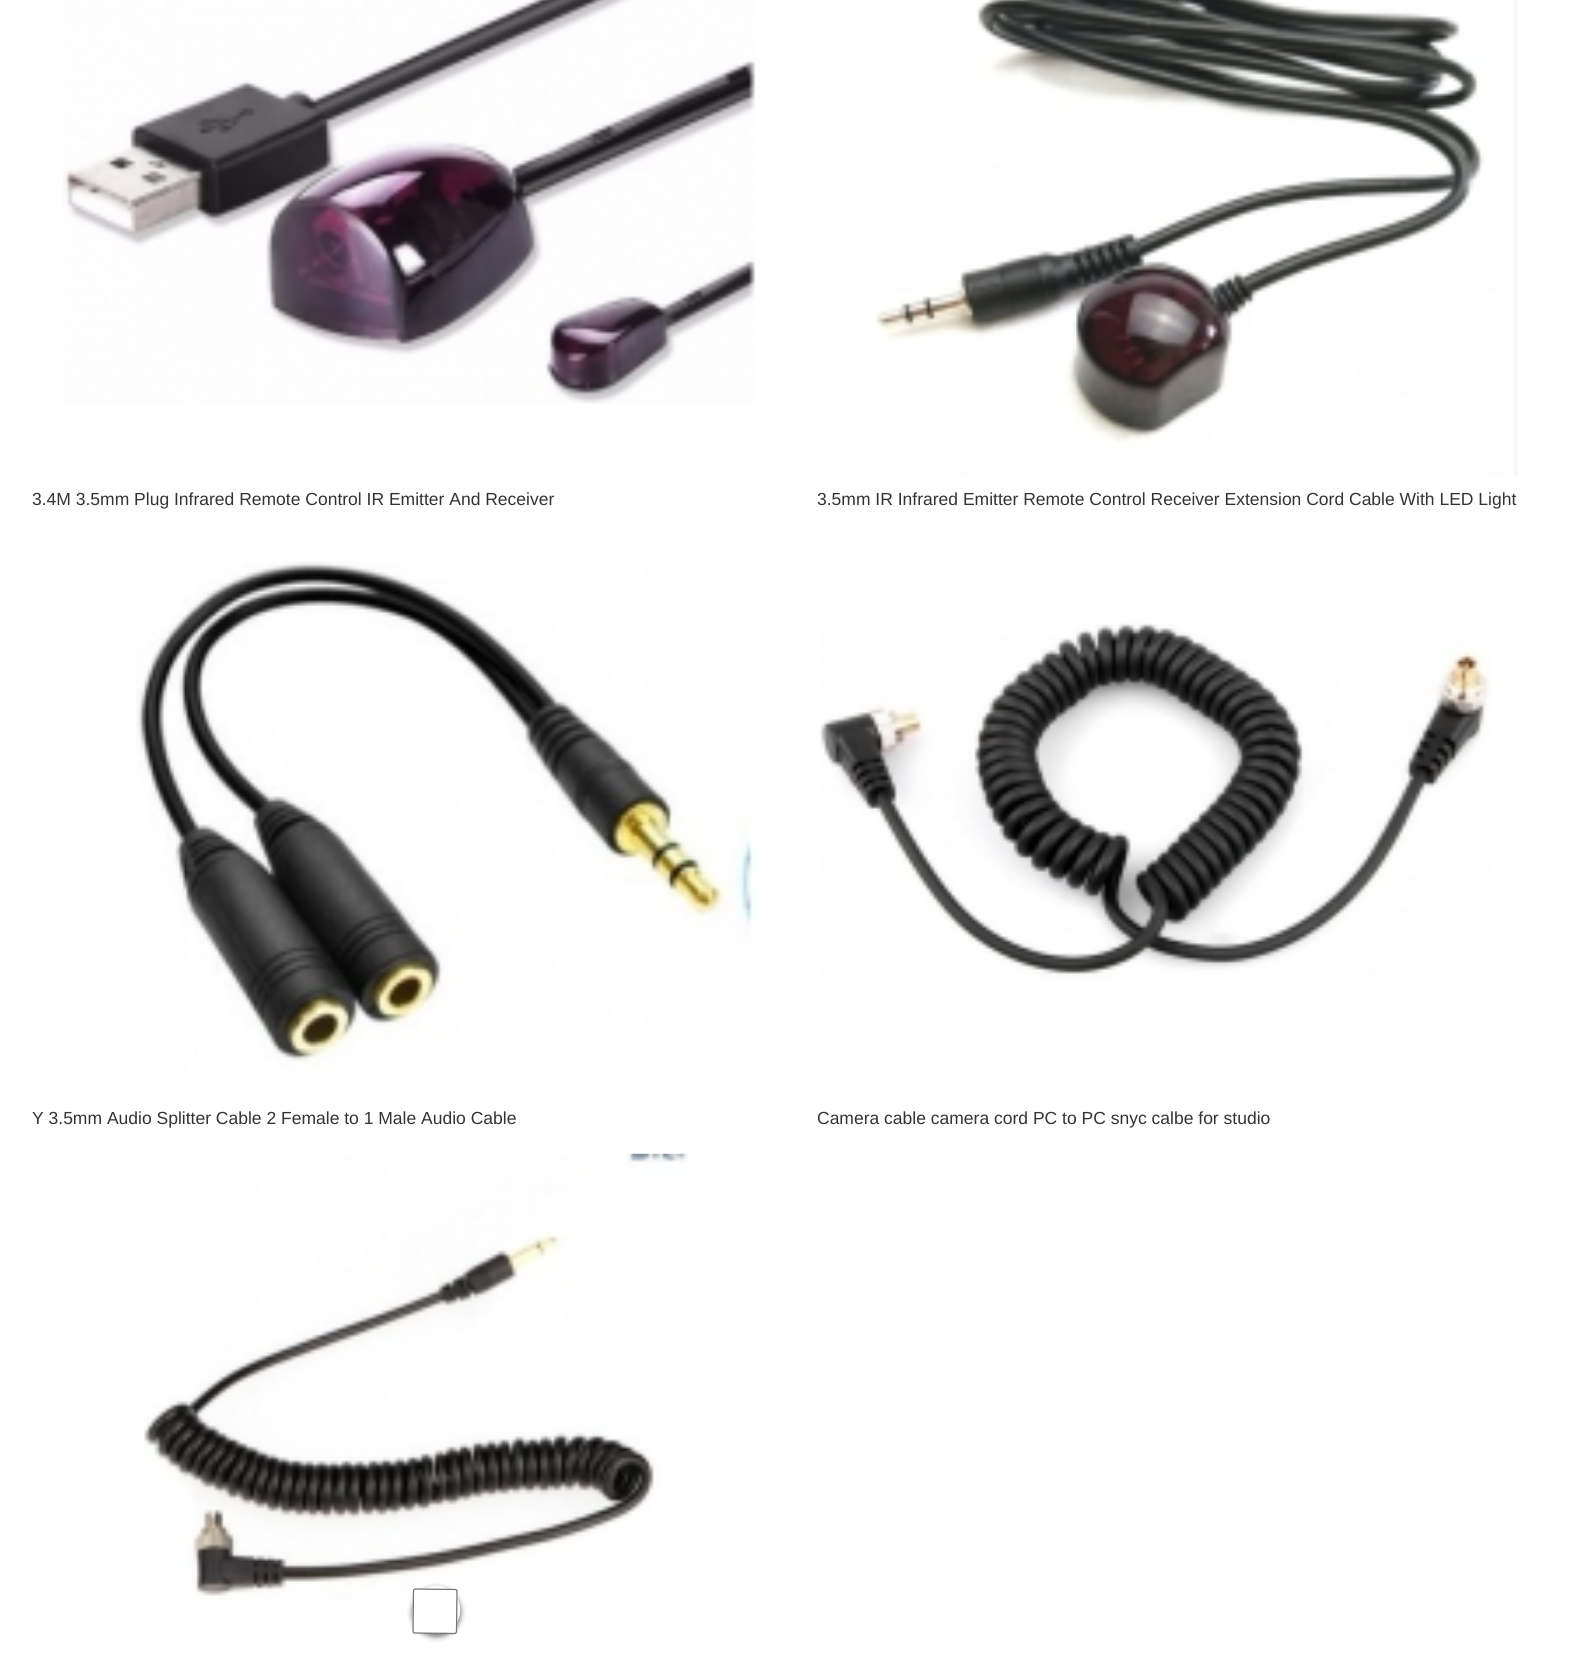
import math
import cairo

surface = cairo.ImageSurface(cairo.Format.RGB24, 1582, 1654)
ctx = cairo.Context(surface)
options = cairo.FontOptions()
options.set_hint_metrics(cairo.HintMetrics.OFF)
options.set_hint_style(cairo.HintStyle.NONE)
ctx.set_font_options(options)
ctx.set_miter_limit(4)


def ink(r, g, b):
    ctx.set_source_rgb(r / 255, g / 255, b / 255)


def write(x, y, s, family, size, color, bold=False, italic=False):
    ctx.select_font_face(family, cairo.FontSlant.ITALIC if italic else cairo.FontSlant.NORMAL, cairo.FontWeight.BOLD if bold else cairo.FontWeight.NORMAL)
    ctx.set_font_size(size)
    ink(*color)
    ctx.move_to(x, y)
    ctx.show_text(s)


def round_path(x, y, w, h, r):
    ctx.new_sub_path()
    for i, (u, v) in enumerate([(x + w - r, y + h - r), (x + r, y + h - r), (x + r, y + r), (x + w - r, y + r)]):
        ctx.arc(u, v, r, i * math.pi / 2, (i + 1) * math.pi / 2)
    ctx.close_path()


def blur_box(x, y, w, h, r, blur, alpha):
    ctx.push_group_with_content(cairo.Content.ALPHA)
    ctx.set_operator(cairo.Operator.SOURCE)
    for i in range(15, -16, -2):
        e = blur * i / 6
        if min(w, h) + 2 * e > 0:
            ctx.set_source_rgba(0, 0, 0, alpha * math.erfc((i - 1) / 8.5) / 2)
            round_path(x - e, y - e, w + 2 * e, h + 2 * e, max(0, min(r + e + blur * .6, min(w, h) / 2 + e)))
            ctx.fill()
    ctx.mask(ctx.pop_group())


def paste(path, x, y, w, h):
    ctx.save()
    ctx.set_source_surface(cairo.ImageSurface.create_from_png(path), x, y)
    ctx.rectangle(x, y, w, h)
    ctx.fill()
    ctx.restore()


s1 = dict(family="Liberation Sans", size=17.5, color=(51, 51, 51))

ink(255, 255, 255)
ctx.paint()
paste("pic1.png", 63, 0, 693, 404)
write(32, 505, "3.4M 3.5mm Plug Infrared Remote Control IR Emitter And Receiver", **s1)
paste("pic2.png", 873, 0, 645, 476)
write(817, 505, "3.5mm IR Infrared Emitter Remote Control Receiver Extension Cord Cable With LED Light", **s1)
paste("pic3.png", 136, 561, 620, 511)
write(32, 1124, "Y 3.5mm Audio Splitter Cable 2 Female to 1 Male Audio Cable", **s1)
paste("pic4.png", 820, 623, 672, 358)
write(817, 1124, "Camera cable camera cord PC to PC snyc calbe for studio", **s1)
paste("pic5.png", 144, 1153, 545, 447)
ink(0, 0, 0)
blur_box(413, 1589, 47, 47, 23.5, 3, 0.25)
round_path(415, 1588, 43, 44, 21.5)
ink(255, 255, 255)
ctx.set_line_width(4)
ctx.stroke()
ink(0, 0, 0)
blur_box(413, 1589, 47, 47, 23.5, 3, 0.25)
round_path(415, 1588, 43, 44, 21.5)
ink(255, 255, 255)
ctx.stroke()
ink(0, 0, 0)
blur_box(413, 1589, 47, 47, 23.5, 3, 0.25)
round_path(415, 1588, 43, 44, 21.5)
ink(255, 255, 255)
ctx.stroke()
ctx.new_path()
ctx.move_to(415, 1588)
ctx.line_to(455, 1589)
ctx.curve_to(457, 1589, 458, 1590, 458, 1592)
ctx.line_to(457, 1632)
ctx.curve_to(457, 1633, 456, 1634, 455, 1634)
ctx.line_to(415, 1633)
ctx.curve_to(413, 1633, 412, 1632, 412, 1631)
ctx.line_to(413, 1591)
ctx.curve_to(413, 1589, 414, 1588, 415, 1588)
ctx.close_path()
ctx.fill()
ctx.new_path()
ctx.move_to(415.5, 1589)
ctx.line_to(455.5, 1589.5)
ctx.curve_to(456.5, 1589.5, 457, 1590.5, 457, 1591.5)
ctx.line_to(456.5, 1631.5)
ctx.curve_to(456.5, 1632.5, 455.5, 1633.5, 454.5, 1633.5)
ctx.line_to(414.5, 1633)
ctx.curve_to(413.5, 1633, 413, 1632, 413, 1631)
ctx.line_to(413.5, 1591)
ctx.curve_to(413.5, 1590, 414.5, 1589, 415.5, 1589)
ctx.close_path()
ink(118, 118, 118)
ctx.set_line_width(1.3)
ctx.stroke()
surface.write_to_png("screenshot.png")
